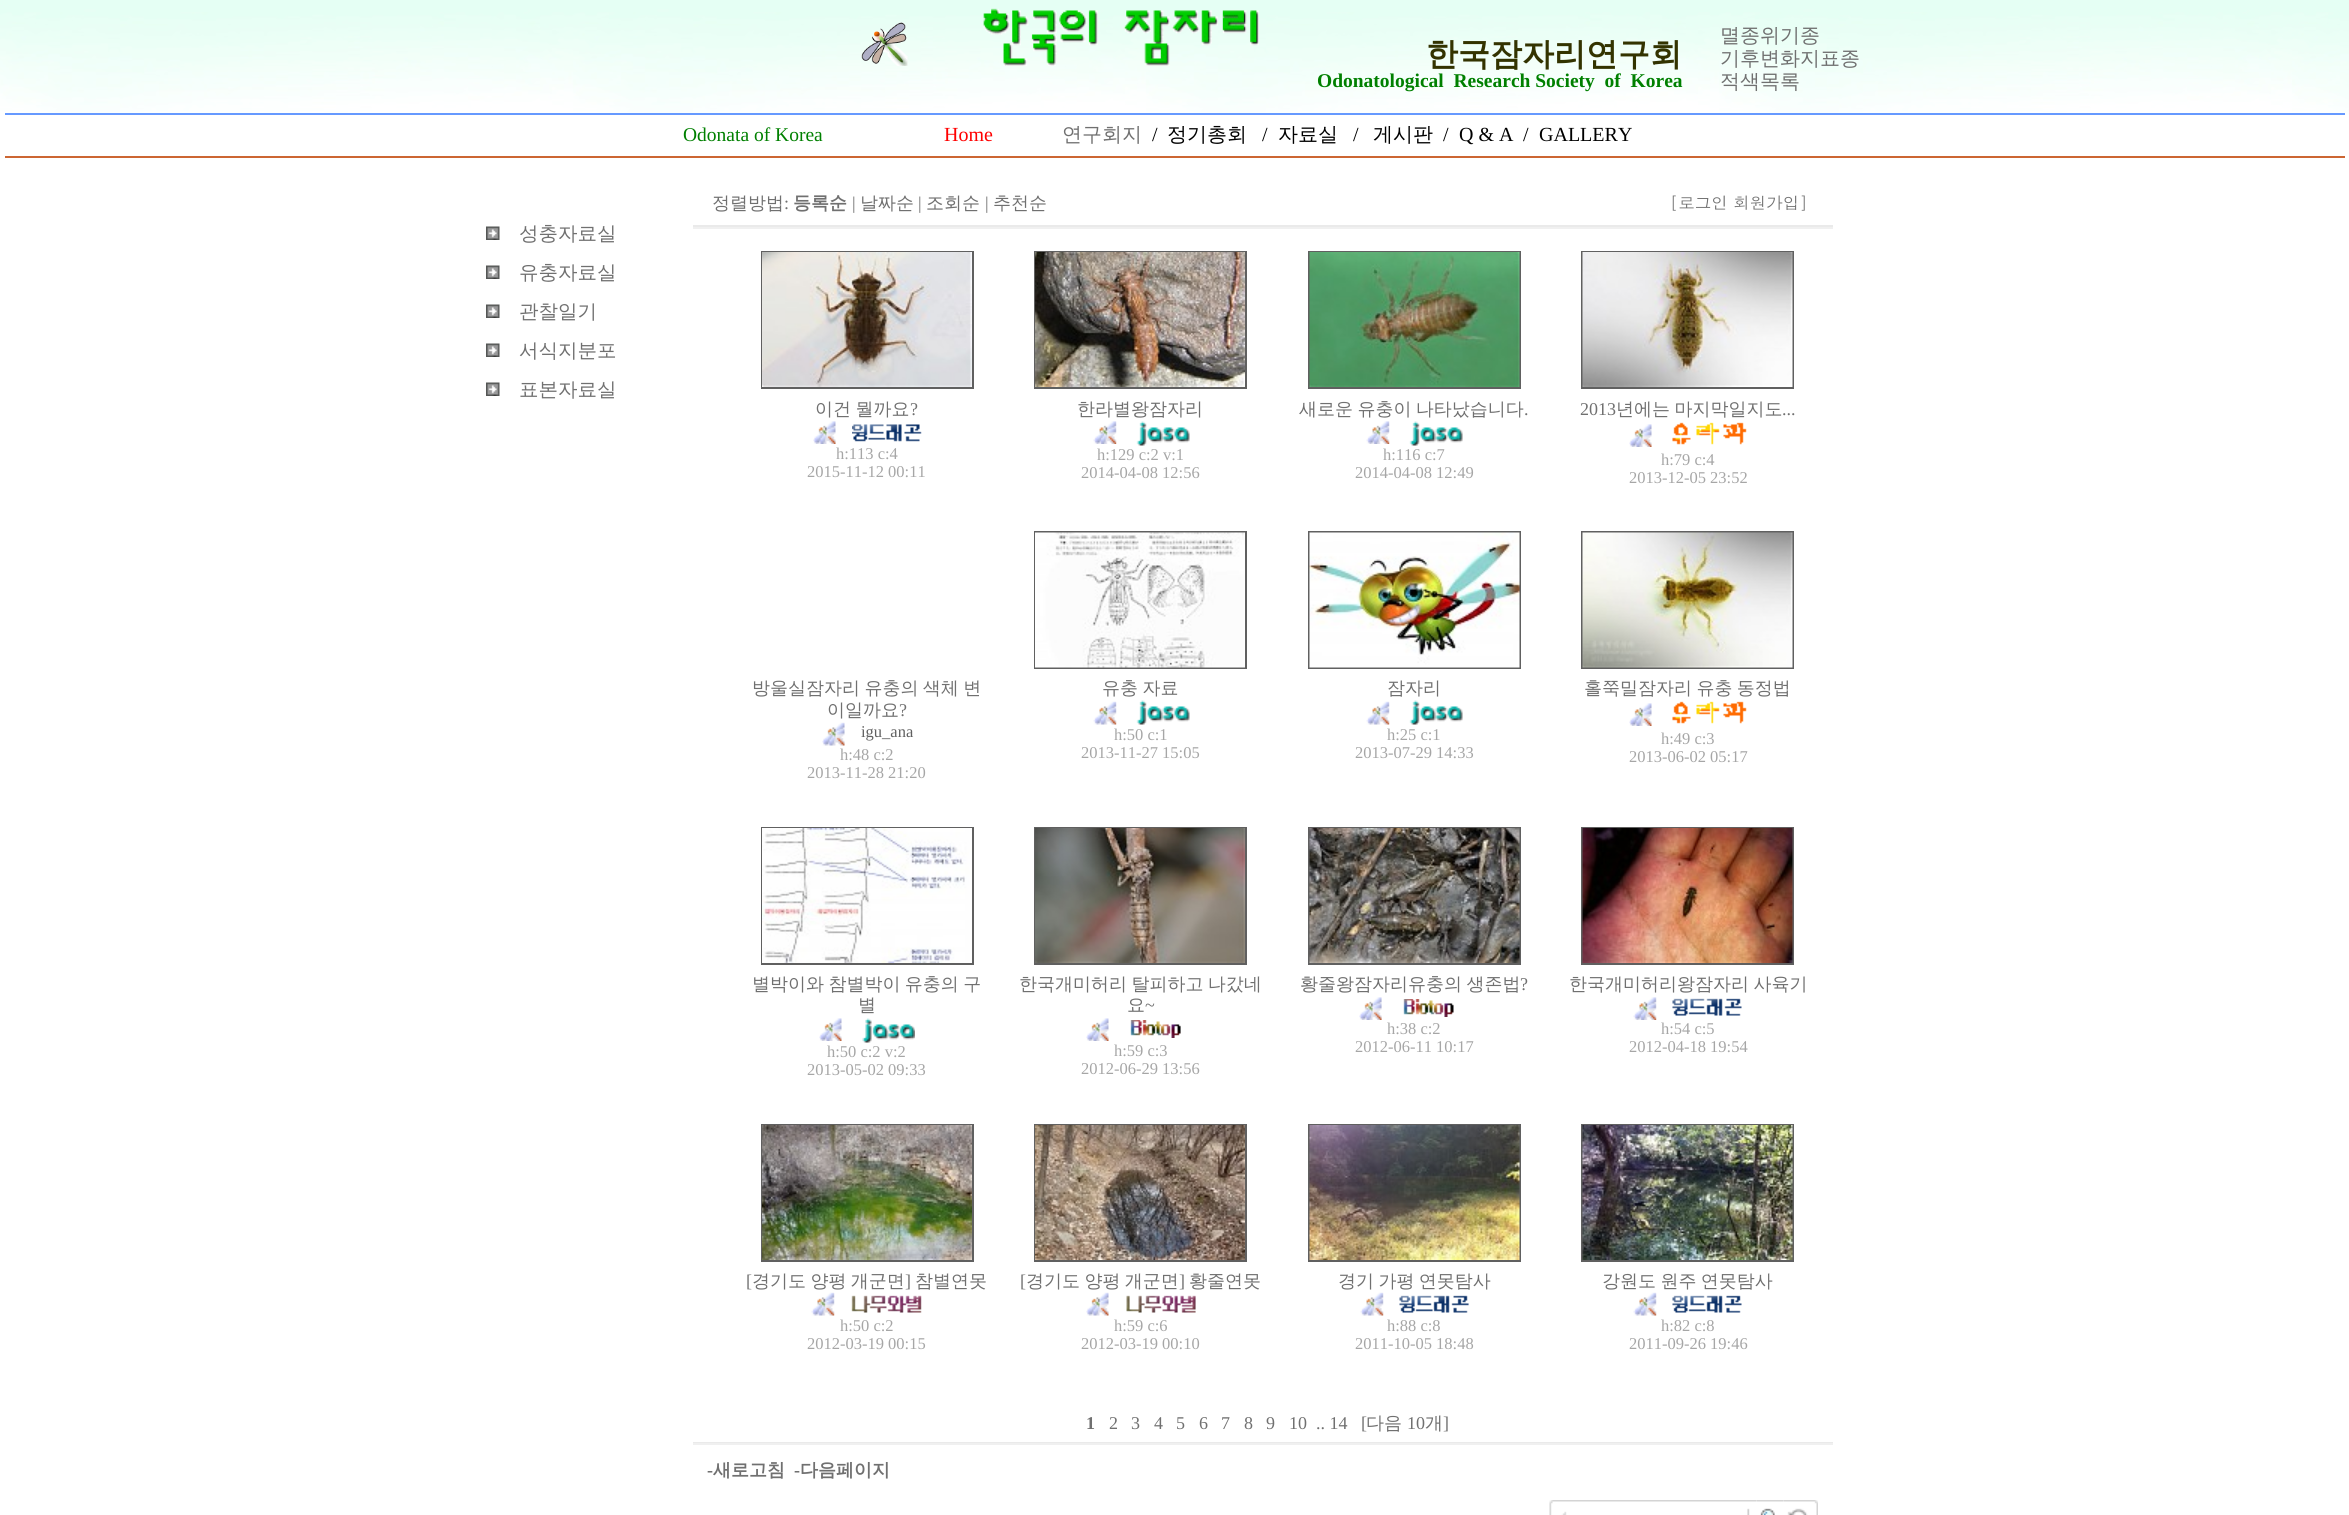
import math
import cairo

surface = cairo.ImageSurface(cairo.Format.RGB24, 2349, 1515)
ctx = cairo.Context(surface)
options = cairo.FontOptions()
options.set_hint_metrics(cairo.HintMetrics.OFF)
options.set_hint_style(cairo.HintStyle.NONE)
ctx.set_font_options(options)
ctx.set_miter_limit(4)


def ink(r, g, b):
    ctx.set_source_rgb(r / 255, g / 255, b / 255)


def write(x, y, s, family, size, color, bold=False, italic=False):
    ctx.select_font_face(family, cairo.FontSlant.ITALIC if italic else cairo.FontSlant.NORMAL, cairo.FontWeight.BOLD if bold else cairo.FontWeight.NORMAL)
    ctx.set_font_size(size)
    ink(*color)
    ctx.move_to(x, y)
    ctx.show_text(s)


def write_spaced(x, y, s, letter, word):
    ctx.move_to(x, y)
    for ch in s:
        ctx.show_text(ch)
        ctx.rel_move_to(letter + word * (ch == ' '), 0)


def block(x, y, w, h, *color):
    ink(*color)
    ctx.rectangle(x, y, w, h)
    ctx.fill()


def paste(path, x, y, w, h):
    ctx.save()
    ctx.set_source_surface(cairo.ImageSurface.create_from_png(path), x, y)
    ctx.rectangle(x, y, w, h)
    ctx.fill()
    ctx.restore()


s1 = dict(family="WenQuanYi Zen Hei", size=32, color=(51, 51, 0), bold=True)
s2 = dict(family="Liberation Serif", size=19.5, color=(0, 128, 0), bold=True)
s3 = dict(family="WenQuanYi Zen Hei Medium", size=20, color=(112, 112, 112))
s4 = dict(family="Liberation Serif", size=19.5, color=(0, 128, 0))
s5 = dict(family="Liberation Serif", size=20, color=(255, 0, 0))
s6 = dict(family="Liberation Serif", size=20, color=(0, 0, 0))
s7 = dict(family="WenQuanYi Zen Hei Medium", size=20, color=(0, 0, 0))
s8 = dict(family="WenQuanYi Zen Hei Medium", size=19.5, color=(112, 112, 112))
s9 = dict(family="WenQuanYi Zen Hei Medium", size=18, color=(112, 112, 112))
s10 = dict(family="Liberation Serif", size=18, color=(112, 112, 112))
s11 = dict(family="WenQuanYi Zen Hei", size=18, color=(112, 112, 112), bold=True)
s12 = dict(family="Dotum", size=16.5, color=(112, 112, 112))
s13 = dict(family="Liberation Serif", size=16.5, color=(166, 166, 166))
s14 = dict(family="Liberation Serif", size=16.5, color=(96, 96, 96))
s15 = dict(family="Liberation Serif", size=18, color=(112, 112, 112), bold=True)

ink(255, 255, 255)
ctx.paint()
paste("pic1.png", 0, 0, 2349, 115)
paste("pic2.png", 861, 22, 47, 44)
paste("pic3.png", 983, 8, 276, 58)
write(1426, 65, "한국잠자리연구회", **s1)
write(1317, 87, "Odonatological  Research Society  of  Korea", **s2)
write(1720, 42, "멸종위기종", **s3)
write(1720, 65, "기후변화지표종", **s3)
write(1720, 88, "적색목록", **s3)
block(5, 113, 2340, 2, 102, 153, 255)
write(683, 141, "Odonata of Korea", **s4)
write(944, 141, "Home", **s5)
write(1062, 141, "연구회지", **s3)
write(1152, 141, "/", **s6)
write(1167, 141, "정기총회", **s7)
write(1262, 141, "/", **s6)
write(1278, 141, "자료실", **s7)
write(1353, 141, "/", **s6)
write(1373, 141, "게시판", **s7)
write(1443, 141, "/", **s6)
write(1459, 141, "Q & A", **s6)
write(1523, 141, "/", **s6)
write(1539, 141, "GALLERY", **s6)
block(5, 156, 2340, 2, 204, 102, 51)
paste("pic4.png", 486, 226, 14, 14)
write(519, 240, "성충자료실", **s8)
paste("pic4.png", 486, 265, 14, 14)
write(519, 279, "유충자료실", **s8)
paste("pic4.png", 486, 304, 14, 14)
write(519, 318, "관찰일기", **s8)
paste("pic4.png", 486, 343, 14, 14)
write(519, 357, "서식지분포", **s8)
paste("pic4.png", 486, 382, 14, 14)
write(519, 396, "표본자료실", **s8)
write(712, 209, "정렬방법", **s9)
write(784, 209, ":", **s10)
write(793, 209, "등록순", **s11)
write(852, 209, "|", **s10)
write(860, 209, "날짜순", **s9)
write(918, 209, "|", **s10)
write(926, 209, "조회순", **s9)
write(985, 209, "|", **s10)
write(993, 209, "추천순", **s9)
write(1670, 209, "[로그인 회원가입]", **s12)
block(693, 225, 1140, 2, 234, 234, 234)
block(693, 227, 1140, 2, 240, 240, 240)
ctx.rectangle(762, 252, 211, 136)
ink(96, 96, 96)
ctx.stroke()
paste("pic5.png", 762, 252, 210, 135)
ctx.select_font_face("WenQuanYi Zen Hei Medium")
ctx.set_font_size(18)
ink(112, 112, 112)
write_spaced(815, 415, "이건 뭘까요", 0, -1)
write(910, 415, "?", **s10)
paste("pic6.png", 813, 421, 23, 23)
paste("pic7.png", 852, 424, 70, 18)
write(836, 459, "h:113 c:4", **s13)
write(807, 477, "2015-11-12 00:11", **s13)
ctx.rectangle(1035, 252, 211, 136)
ink(96, 96, 96)
ctx.stroke()
paste("pic8.png", 1035, 252, 210, 135)
write(1077, 415, "한라별왕잠자리", **s9)
paste("pic9.png", 1093, 421, 24, 23)
paste("pic10.png", 1136, 421, 54, 25)
write(1097, 460, "h:129 c:2 v:1", **s13)
write(1081, 478, "2014-04-08 12:56", **s13)
ctx.rectangle(1309, 252, 211, 136)
ink(96, 96, 96)
ctx.stroke()
paste("pic11.png", 1309, 252, 211, 135)
ctx.select_font_face("WenQuanYi Zen Hei Medium")
ctx.set_font_size(18)
ink(112, 112, 112)
write_spaced(1299, 415, "새로운 유충이 나타났습니다", 0, -1)
write(1524, 415, ".", **s10)
paste("pic9.png", 1366, 421, 24, 23)
paste("pic10.png", 1409, 421, 54, 25)
write(1383, 460, "h:116 c:7", **s13)
write(1355, 478, "2014-04-08 12:49", **s13)
ctx.rectangle(1582, 252, 211, 136)
ink(96, 96, 96)
ctx.stroke()
paste("pic12.png", 1582, 252, 211, 135)
write(1580, 415, "2013", **s10)
ctx.select_font_face("WenQuanYi Zen Hei Medium")
write_spaced(1616, 415, "년에는 마지막일지도", 0, -1)
write(1782, 415, "...", **s10)
paste("pic6.png", 1629, 424, 23, 23)
paste("pic13.png", 1672, 422, 75, 23)
write(1661, 465, "h:79 c:4", **s13)
write(1629, 483, "2013-12-05 23:52", **s13)
ctx.select_font_face("WenQuanYi Zen Hei Medium")
ctx.set_font_size(18)
ink(112, 112, 112)
write_spaced(752, 694, "방울실잠자리 유충의 색체 변", 0, -1)
write(827, 716, "이일까요", **s9)
write(899, 716, "?", **s10)
paste("pic14.png", 822, 722, 23, 24)
write(861, 737, "igu_ana", **s14)
write(840, 760, "h:48 c:2", **s13)
write(807, 778, "2013-11-28 21:20", **s13)
ctx.rectangle(1035, 532, 211, 136)
ink(96, 96, 96)
ctx.stroke()
paste("pic15.png", 1035, 532, 210, 136)
ctx.select_font_face("WenQuanYi Zen Hei Medium")
ctx.set_font_size(18)
ink(112, 112, 112)
write_spaced(1102, 694, "유충 자료", 0, -1)
paste("pic16.png", 1093, 701, 24, 24)
paste("pic10.png", 1136, 700, 54, 25)
write(1114, 740, "h:50 c:1", **s13)
write(1081, 758, "2013-11-27 15:05", **s13)
ctx.rectangle(1309, 532, 211, 136)
ink(96, 96, 96)
ctx.stroke()
paste("pic17.png", 1309, 532, 211, 136)
write(1387, 694, "잠자리", **s9)
paste("pic16.png", 1366, 701, 24, 24)
paste("pic10.png", 1409, 700, 54, 25)
write(1387, 740, "h:25 c:1", **s13)
write(1355, 758, "2013-07-29 14:33", **s13)
ctx.rectangle(1582, 532, 211, 136)
ink(96, 96, 96)
ctx.stroke()
paste("pic18.png", 1582, 532, 211, 136)
ctx.select_font_face("WenQuanYi Zen Hei Medium")
ctx.set_font_size(18)
ink(112, 112, 112)
write_spaced(1584, 694, "홀쭉밀잠자리 유충 동정법", 0, -1)
paste("pic6.png", 1629, 703, 23, 23)
paste("pic13.png", 1672, 701, 75, 23)
write(1661, 744, "h:49 c:3", **s13)
write(1629, 762, "2013-06-02 05:17", **s13)
ctx.rectangle(762, 828, 211, 136)
ink(96, 96, 96)
ctx.stroke()
paste("pic19.png", 762, 828, 210, 135)
ctx.select_font_face("WenQuanYi Zen Hei Medium")
ctx.set_font_size(18)
ink(112, 112, 112)
write_spaced(752, 990, "별박이와 참별박이 유충의 구", 0, -1)
write(858, 1011, "별", **s9)
paste("pic6.png", 819, 1018, 23, 23)
paste("pic20.png", 862, 1018, 53, 25)
write(827, 1057, "h:50 c:2 v:2", **s13)
write(807, 1075, "2013-05-02 09:33", **s13)
ctx.rectangle(1035, 828, 211, 136)
ink(96, 96, 96)
ctx.stroke()
paste("pic21.png", 1035, 828, 210, 135)
ctx.select_font_face("WenQuanYi Zen Hei Medium")
ctx.set_font_size(18)
ink(112, 112, 112)
write_spaced(1019, 990, "한국개미허리 탈피하고 나갔네", 0, -1)
write(1127, 1011, "요", **s9)
write(1145, 1011, "~", **s10)
paste("pic6.png", 1086, 1018, 23, 23)
paste("pic22.png", 1130, 1020, 51, 18)
write(1114, 1056, "h:59 c:3", **s13)
write(1081, 1074, "2012-06-29 13:56", **s13)
ctx.rectangle(1309, 828, 211, 136)
ink(96, 96, 96)
ctx.stroke()
paste("pic23.png", 1309, 828, 211, 135)
ctx.select_font_face("WenQuanYi Zen Hei Medium")
ctx.set_font_size(18)
ink(112, 112, 112)
write_spaced(1300, 990, "황줄왕잠자리유충의 생존법", 0, -1)
write(1520, 990, "?", **s10)
paste("pic24.png", 1359, 997, 23, 23)
paste("pic25.png", 1403, 999, 51, 18)
write(1387, 1034, "h:38 c:2", **s13)
write(1355, 1052, "2012-06-11 10:17", **s13)
ctx.rectangle(1582, 828, 211, 136)
ink(96, 96, 96)
ctx.stroke()
paste("pic26.png", 1582, 828, 211, 135)
ctx.select_font_face("WenQuanYi Zen Hei Medium")
ctx.set_font_size(18)
ink(112, 112, 112)
write_spaced(1569, 990, "한국개미허리왕잠자리 사육기", 0, -1)
paste("pic27.png", 1633, 997, 24, 23)
paste("pic28.png", 1672, 998, 70, 18)
write(1661, 1034, "h:54 c:5", **s13)
write(1629, 1052, "2012-04-18 19:54", **s13)
ctx.rectangle(762, 1125, 211, 136)
ink(96, 96, 96)
ctx.stroke()
paste("pic29.png", 762, 1125, 210, 135)
write(746, 1287, "[", **s10)
ctx.select_font_face("WenQuanYi Zen Hei Medium")
write_spaced(752, 1287, "경기도 양평 개군면", 0, -1)
write(905, 1287, "]", **s10)
write(915, 1287, "참별연못", **s9)
paste("pic30.png", 811, 1292, 24, 24)
paste("pic31.png", 851, 1295, 71, 18)
write(840, 1331, "h:50 c:2", **s13)
write(807, 1349, "2012-03-19 00:15", **s13)
ctx.rectangle(1035, 1125, 211, 136)
ink(96, 96, 96)
ctx.stroke()
paste("pic32.png", 1035, 1125, 210, 135)
write(1020, 1287, "[", **s10)
ctx.select_font_face("WenQuanYi Zen Hei Medium")
write_spaced(1026, 1287, "경기도 양평 개군면", 0, -1)
write(1179, 1287, "]", **s10)
write(1189, 1287, "황줄연못", **s9)
paste("pic14.png", 1086, 1292, 23, 24)
paste("pic33.png", 1126, 1295, 70, 18)
write(1114, 1331, "h:59 c:6", **s13)
write(1081, 1349, "2012-03-19 00:10", **s13)
ctx.rectangle(1309, 1125, 211, 136)
ink(96, 96, 96)
ctx.stroke()
paste("pic34.png", 1309, 1125, 211, 135)
ctx.select_font_face("WenQuanYi Zen Hei Medium")
ctx.set_font_size(18)
ink(112, 112, 112)
write_spaced(1338, 1287, "경기 가평 연못탐사", 0, -1)
paste("pic16.png", 1360, 1292, 24, 24)
paste("pic35.png", 1399, 1295, 70, 18)
write(1387, 1331, "h:88 c:8", **s13)
write(1355, 1349, "2011-10-05 18:48", **s13)
ctx.rectangle(1582, 1125, 211, 136)
ink(96, 96, 96)
ctx.stroke()
paste("pic36.png", 1582, 1125, 211, 135)
ctx.select_font_face("WenQuanYi Zen Hei Medium")
ctx.set_font_size(18)
ink(112, 112, 112)
write_spaced(1602, 1287, "강원도 원주 연못탐사", 0, -1)
paste("pic30.png", 1633, 1292, 24, 24)
paste("pic28.png", 1672, 1295, 70, 18)
write(1661, 1331, "h:82 c:8", **s13)
write(1629, 1349, "2011-09-26 19:46", **s13)
write(1086, 1429, "1", **s15)
write(1109, 1429, "2", **s10)
write(1131, 1429, "3", **s10)
write(1154, 1429, "4", **s10)
write(1176, 1429, "5", **s10)
write(1199, 1429, "6", **s10)
write(1221, 1429, "7", **s10)
write(1244, 1429, "8", **s10)
write(1266, 1429, "9", **s10)
write(1289, 1429, "10", **s10)
write(1316, 1429, ".. 14", **s10)
write(1361, 1429, "[", **s10)
write(1366, 1429, "다음", **s9)
write(1407, 1429, "10", **s10)
write(1425, 1429, "개", **s9)
write(1443, 1429, "]", **s10)
block(693, 1442, 1140, 1, 234, 234, 234)
block(693, 1443, 1140, 2, 240, 240, 240)
write(707, 1476, "-", **s15)
write(713, 1476, "새로고침", **s11)
write(794, 1476, "-", **s15)
write(800, 1476, "다음페이지", **s11)
paste("pic37.png", 1549, 1500, 23, 15)
paste("pic38.png", 1572, 1500, 171, 2)
paste("pic39.png", 1743, 1500, 14, 15)
paste("pic40.png", 1756, 1500, 28, 15)
paste("pic41.png", 1783, 1500, 35, 15)
surface.write_to_png("screenshot.png")
